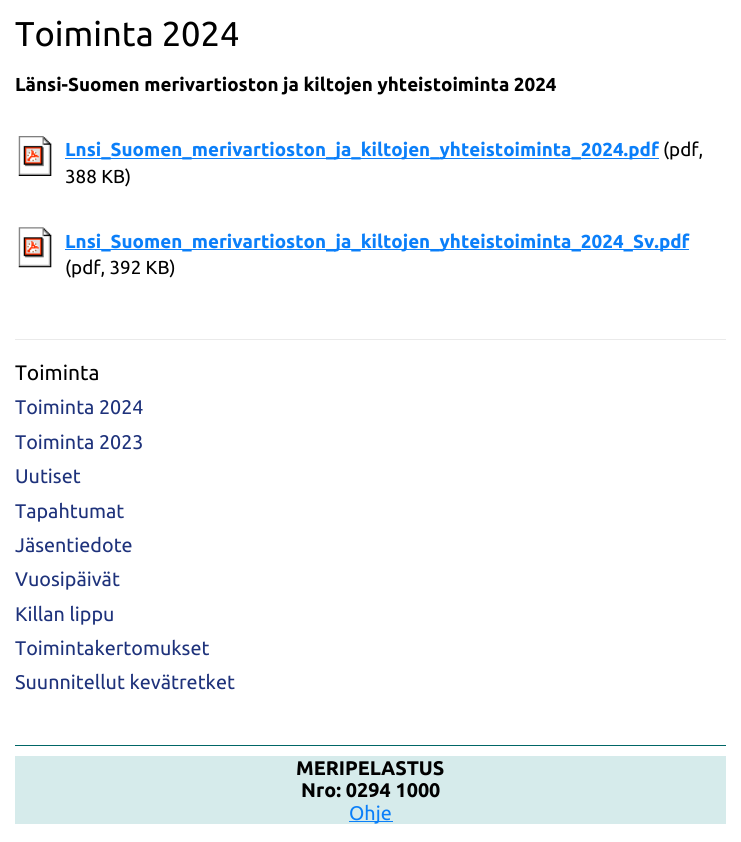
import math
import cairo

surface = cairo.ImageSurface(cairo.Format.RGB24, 741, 842)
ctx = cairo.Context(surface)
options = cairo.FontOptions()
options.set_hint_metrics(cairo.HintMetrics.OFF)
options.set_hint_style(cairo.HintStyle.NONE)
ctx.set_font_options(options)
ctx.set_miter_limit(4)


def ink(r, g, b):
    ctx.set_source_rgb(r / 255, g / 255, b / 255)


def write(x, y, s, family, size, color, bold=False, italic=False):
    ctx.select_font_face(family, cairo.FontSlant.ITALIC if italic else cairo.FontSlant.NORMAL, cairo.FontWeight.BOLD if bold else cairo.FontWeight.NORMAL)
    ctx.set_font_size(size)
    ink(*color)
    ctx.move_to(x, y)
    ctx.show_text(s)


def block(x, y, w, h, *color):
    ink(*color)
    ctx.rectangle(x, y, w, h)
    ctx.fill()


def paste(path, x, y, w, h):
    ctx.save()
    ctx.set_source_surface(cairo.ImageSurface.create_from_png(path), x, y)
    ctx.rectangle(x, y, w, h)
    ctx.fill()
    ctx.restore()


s1 = dict(family="Ubuntu", size=34.5, color=(0, 0, 0))
s2 = dict(family="Ubuntu", size=18.8, color=(0, 0, 0), bold=True)
s3 = dict(family="Ubuntu", size=18.8, color=(11, 127, 249), bold=True)
s4 = dict(family="Ubuntu", size=18.8, color=(0, 0, 0))
s5 = dict(family="Ubuntu", size=21, color=(0, 0, 0))
s6 = dict(family="Ubuntu", size=19.75, color=(30, 50, 123))
s7 = dict(family="Ubuntu", size=19.75, color=(0, 0, 0), bold=True)
s8 = dict(family="Ubuntu", size=19.75, color=(11, 127, 249))

ink(255, 255, 255)
ctx.paint()
write(15, 46, "Toiminta 2024", **s1)
write(15, 91, "Länsi-Suomen merivartioston ja kiltojen yhteistoiminta 2024", **s2)
paste("pic1.png", 18, 136, 34, 40)
block(65, 158, 594, 1, 11, 127, 249)
write(65, 156, "Lnsi_Suomen_merivartioston_ja_kiltojen_yhteistoiminta_2024.pdf", **s3)
write(663, 156, "(pdf,", **s4)
write(65, 183, "388 KB)", **s4)
paste("pic2.png", 18, 227, 34, 41)
block(65, 249, 624, 1, 11, 127, 249)
write(65, 248, "Lnsi_Suomen_merivartioston_ja_kiltojen_yhteistoiminta_2024_Sv.pdf", **s3)
write(65, 274, "(pdf, 392 KB)", **s4)
block(15, 339, 711, 1, 234, 234, 234)
write(15, 380, "Toiminta", **s5)
write(15, 414, "Toiminta 2024", **s6)
write(15, 449, "Toiminta 2023", **s6)
write(15, 483, "Uutiset", **s6)
write(15, 518, "Tapahtumat", **s6)
write(15, 552, "Jäsentiedote", **s6)
write(15, 586, "Vuosipäivät", **s6)
write(15, 621, "Killan lippu", **s6)
write(15, 655, "Toimintakertomukset", **s6)
write(15, 689, "Suunnitellut kevätretket", **s6)
block(15, 745, 711, 1, 0, 102, 102)
block(15, 756, 711, 68, 214, 235, 235)
write(296, 775, "MERIPELASTUS", **s7)
write(301, 797, "Nro: 0294 1000", **s7)
block(349, 821, 44, 1, 11, 127, 249)
write(349, 820, "Ohje", **s8)
surface.write_to_png("screenshot.png")
